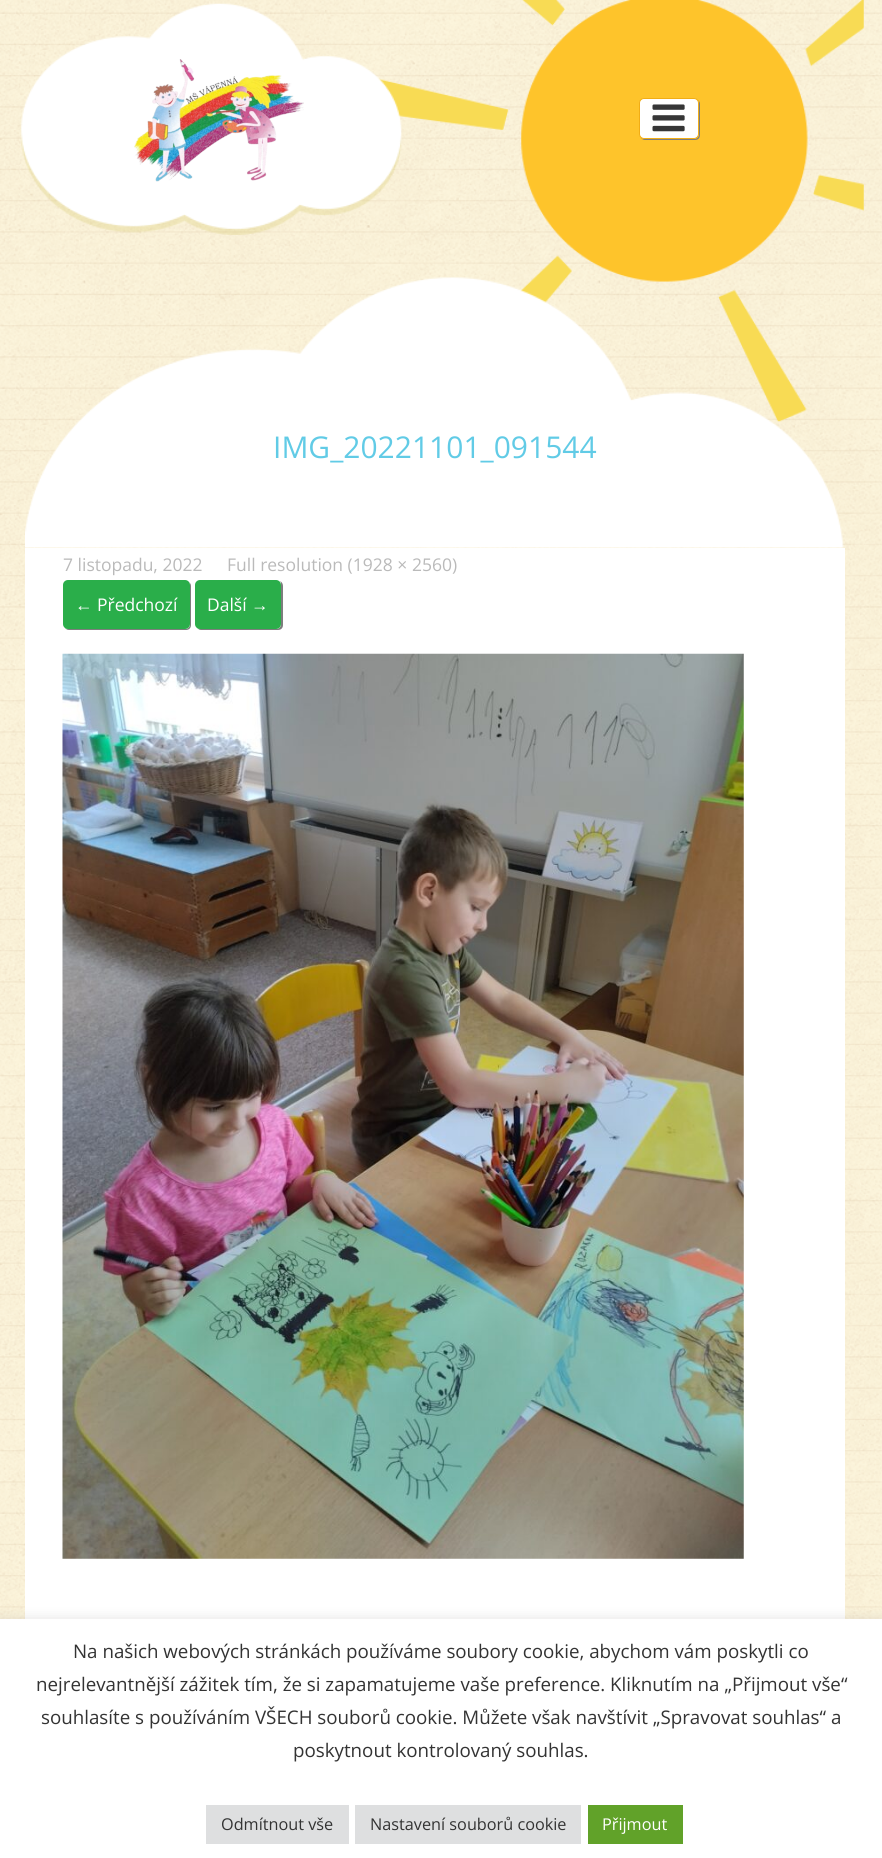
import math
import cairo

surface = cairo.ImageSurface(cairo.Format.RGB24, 882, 1858)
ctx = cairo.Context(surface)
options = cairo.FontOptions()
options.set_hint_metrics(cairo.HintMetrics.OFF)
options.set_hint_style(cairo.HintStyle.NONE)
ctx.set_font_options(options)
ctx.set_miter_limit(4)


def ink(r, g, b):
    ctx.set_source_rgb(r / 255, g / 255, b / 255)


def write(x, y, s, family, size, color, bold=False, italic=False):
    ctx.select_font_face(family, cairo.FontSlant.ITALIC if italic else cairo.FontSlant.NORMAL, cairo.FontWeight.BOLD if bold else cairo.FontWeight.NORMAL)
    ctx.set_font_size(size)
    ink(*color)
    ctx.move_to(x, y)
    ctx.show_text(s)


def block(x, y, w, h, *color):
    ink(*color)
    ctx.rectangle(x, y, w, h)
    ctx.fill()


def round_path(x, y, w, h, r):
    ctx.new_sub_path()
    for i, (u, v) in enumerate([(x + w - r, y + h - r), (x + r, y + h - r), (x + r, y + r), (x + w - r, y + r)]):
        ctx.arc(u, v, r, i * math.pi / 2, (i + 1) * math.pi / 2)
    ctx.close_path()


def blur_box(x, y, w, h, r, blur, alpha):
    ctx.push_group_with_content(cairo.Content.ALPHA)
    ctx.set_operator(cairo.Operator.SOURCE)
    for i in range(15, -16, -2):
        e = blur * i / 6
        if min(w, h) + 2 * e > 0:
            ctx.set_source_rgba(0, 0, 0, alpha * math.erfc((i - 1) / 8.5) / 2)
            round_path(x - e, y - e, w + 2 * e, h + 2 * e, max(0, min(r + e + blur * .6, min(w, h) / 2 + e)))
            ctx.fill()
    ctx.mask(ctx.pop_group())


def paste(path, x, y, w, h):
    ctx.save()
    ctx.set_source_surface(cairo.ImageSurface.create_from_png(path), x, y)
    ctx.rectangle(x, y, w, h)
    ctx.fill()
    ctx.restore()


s1 = dict(family="Open Sans", size=30, color=(97, 203, 230))
s2 = dict(family="Open Sans", size=17.5, color=(186, 186, 186))
s3 = dict(family="Liberation Sans", size=17.5, color=(255, 255, 255))
s4 = dict(family="Open Sans", size=17.5, color=(255, 255, 255))
s5 = dict(family="Open Sans", size=18.75, color=(51, 51, 51))
s6 = dict(family="Open Sans", size=16.25, color=(51, 51, 51))
s7 = dict(family="Open Sans", size=16.25, color=(255, 255, 255))

ink(255, 255, 255)
ctx.paint()
paste("pic1.png", 0, 0, 882, 1619)
paste("pic4.png", 377, 0, 487, 422)
paste("pic2.png", 21, 3, 381, 232)
paste("pic3.png", 134, 59, 170, 123)
ink(125, 125, 125)
ctx.new_path()
ctx.move_to(641, 138)
ctx.curve_to(642, 139, 643, 140, 645, 140)
ctx.line_to(695, 140)
ctx.curve_to(698, 140, 700, 138, 700, 135)
ctx.line_to(700, 104)
ctx.curve_to(700, 102, 699, 101, 698, 100)
ctx.line_to(699, 102)
ctx.line_to(699, 134)
ctx.curve_to(699, 137, 697, 139, 694, 139)
ctx.line_to(644, 139)
ctx.close_path()
ctx.fill()
ink(255, 255, 255)
round_path(639.5, 98.5, 59, 40, 4.5)
ctx.fill_preserve()
ink(241, 173, 21)
ctx.set_line_width(1)
ctx.stroke()
paste("pic5.png", 652, 104, 33, 28)
paste("pic6.png", 25, 277, 819, 271)
write(273, 458, "IMG_20221101_091544", **s1)
block(25, 548, 820, 1071, 255, 255, 255)
write(63, 571, "7 listopadu, 2022", **s2)
write(227, 571, "Full resolution (1928 × 2560)", **s2)
ink(125, 125, 125)
ctx.new_path()
ctx.move_to(65, 628)
ctx.curve_to(66, 629, 67, 630, 69, 630)
ctx.line_to(186, 630)
ctx.curve_to(189, 630, 191, 628, 191, 625)
ctx.line_to(191, 586)
ctx.curve_to(191, 584, 190, 583, 189, 582)
ctx.curve_to(190, 583, 190, 584, 190, 585)
ctx.line_to(190, 624)
ctx.curve_to(190, 627, 188, 629, 185, 629)
ctx.line_to(68, 629)
ctx.close_path()
ctx.fill()
ink(42, 174, 74)
round_path(63, 580, 127, 49, 5)
ctx.fill()
write(75, 611, "←", **s3)
write(97, 611, "Předchozí", **s4)
ink(125, 125, 125)
ctx.new_path()
ctx.move_to(197, 627)
ctx.curve_to(198, 629, 199, 630, 201, 630)
ctx.line_to(278, 630)
ctx.curve_to(281, 630, 283, 628, 283, 625)
ctx.line_to(283, 586)
ctx.curve_to(283, 584, 282, 582, 280, 581)
ctx.curve_to(281, 582, 281, 584, 281, 585)
ctx.line_to(281, 624)
ctx.curve_to(281, 627, 279, 629, 276, 629)
ctx.line_to(200, 629)
ctx.curve_to(199, 629, 198, 628, 197, 627)
ctx.close_path()
ctx.fill()
ink(42, 174, 74)
round_path(195, 580, 86, 49, 5)
ctx.fill()
write(207, 611, "Další", **s4)
write(251, 611, "→", **s3)
paste("pic7.png", 62, 653, 682, 906)
ink(172, 171, 171)
blur_box(0, 1618, 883, 240, 0, 6, 0.3)
block(0, 1619, 882, 239, 255, 255, 255)
write(73, 1658, "Na našich webových stránkách používáme soubory cookie, abychom vám poskytli co", **s5)
write(36, 1691, "nejrelevantnější zážitek tím, že si zapamatujeme vaše preference. Kliknutím na „Přijmout vše“", **s5)
write(41, 1724, "souhlasíte s používáním VŠECH souborů cookie. Můžete však navštívit „Spravovat souhlas“ a", **s5)
write(293, 1757, "poskytnout kontrolovaný souhlas.", **s5)
block(206, 1805, 143, 39, 222, 223, 224)
write(221, 1830, "Odmítnout vše", **s6)
block(355, 1805, 226, 39, 222, 223, 224)
write(370, 1830, "Nastavení souborů cookie", **s6)
block(588, 1805, 95, 39, 97, 162, 41)
write(602, 1830, "Přijmout", **s7)
surface.write_to_png("screenshot.png")
